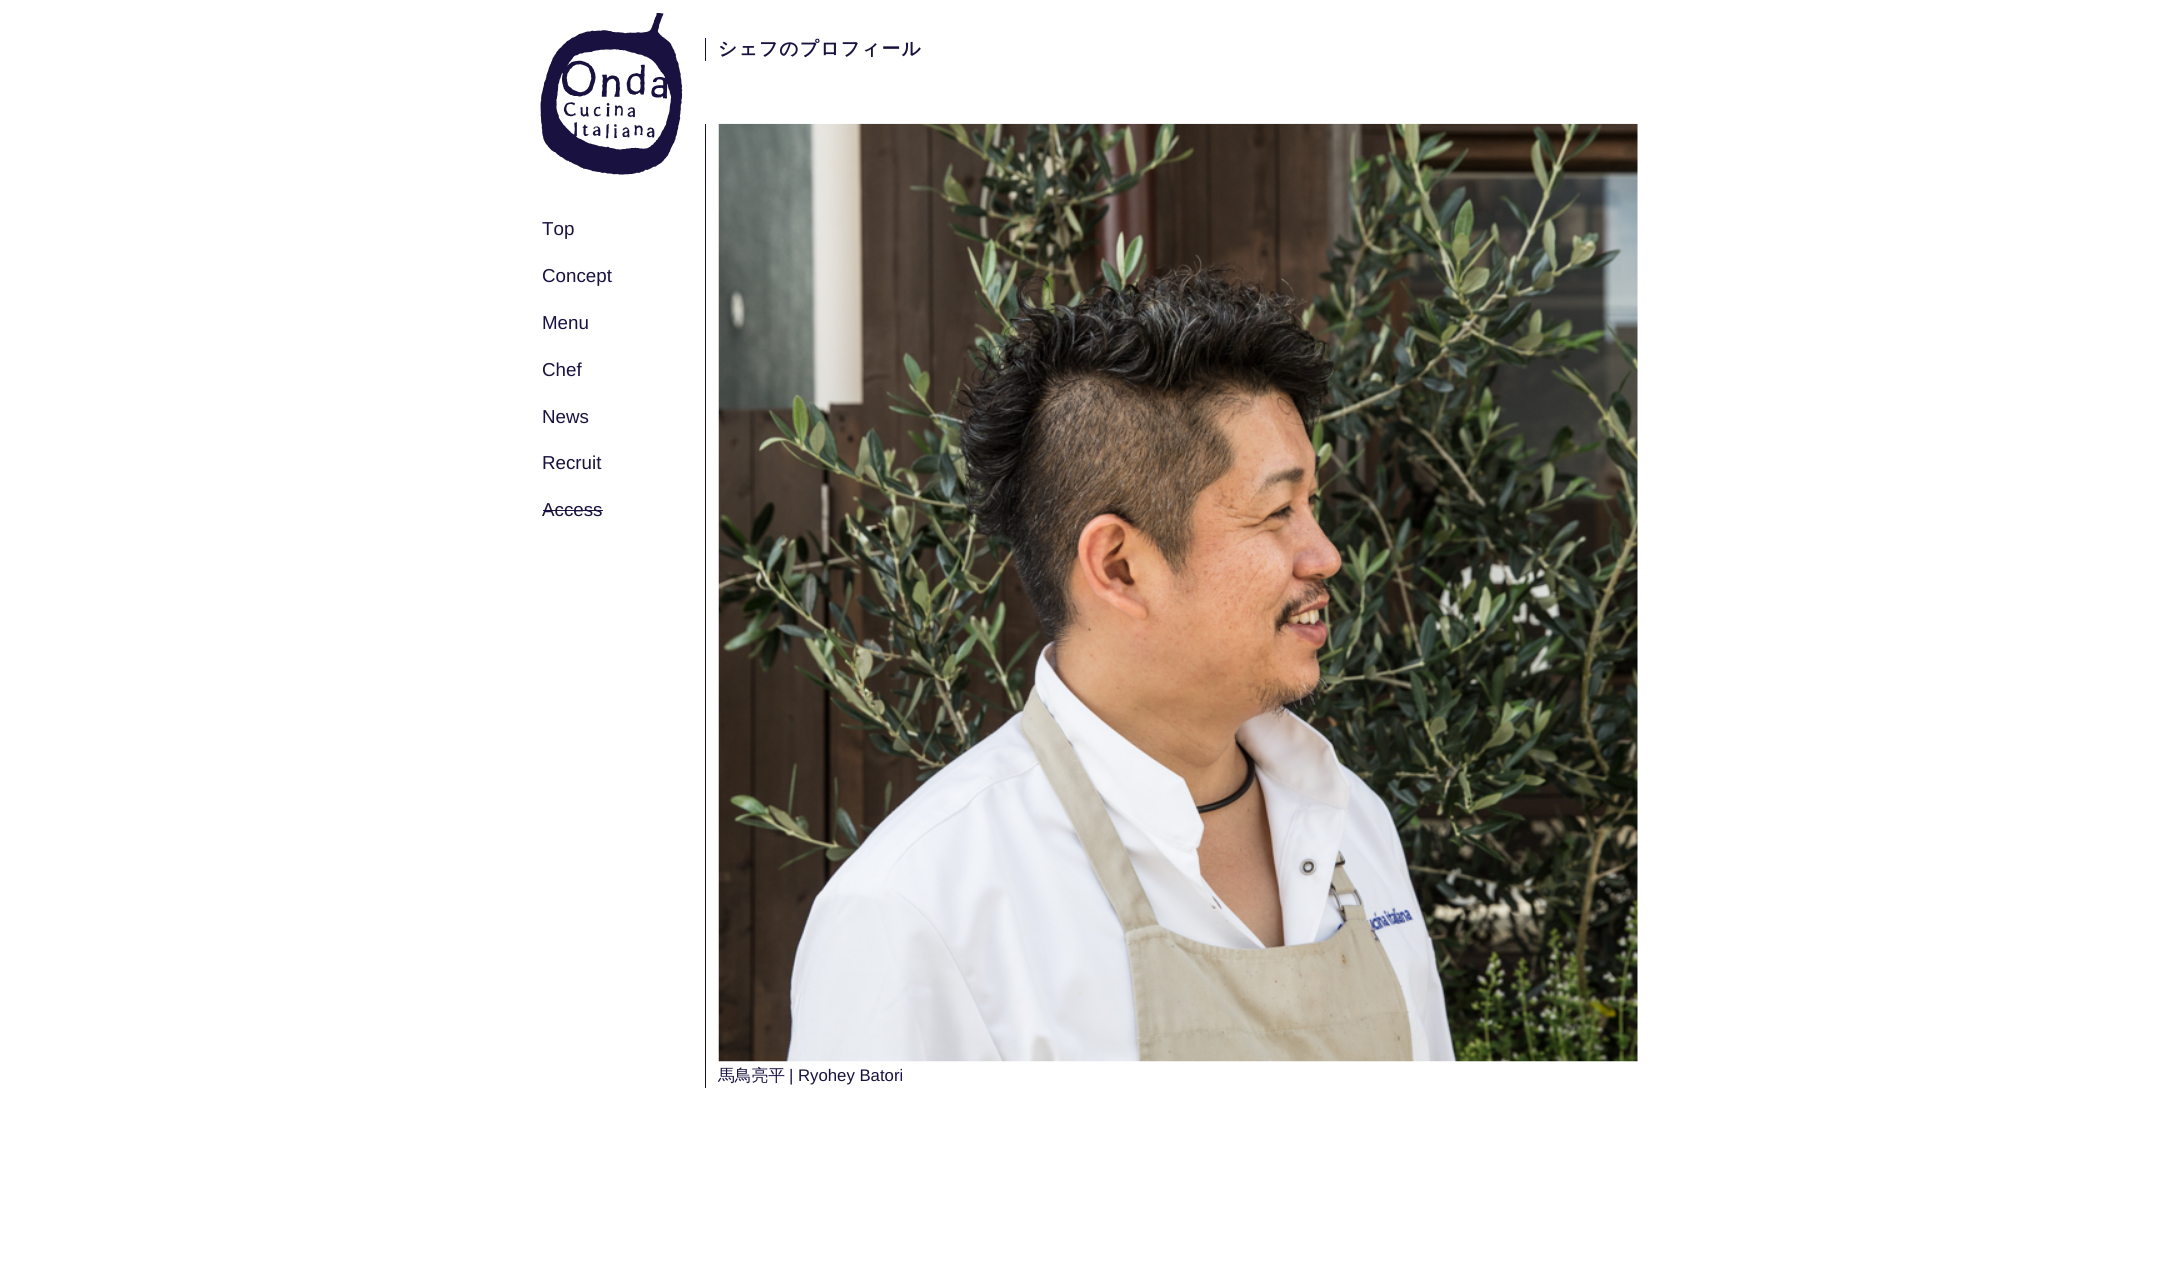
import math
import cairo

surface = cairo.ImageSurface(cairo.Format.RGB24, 2158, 1271)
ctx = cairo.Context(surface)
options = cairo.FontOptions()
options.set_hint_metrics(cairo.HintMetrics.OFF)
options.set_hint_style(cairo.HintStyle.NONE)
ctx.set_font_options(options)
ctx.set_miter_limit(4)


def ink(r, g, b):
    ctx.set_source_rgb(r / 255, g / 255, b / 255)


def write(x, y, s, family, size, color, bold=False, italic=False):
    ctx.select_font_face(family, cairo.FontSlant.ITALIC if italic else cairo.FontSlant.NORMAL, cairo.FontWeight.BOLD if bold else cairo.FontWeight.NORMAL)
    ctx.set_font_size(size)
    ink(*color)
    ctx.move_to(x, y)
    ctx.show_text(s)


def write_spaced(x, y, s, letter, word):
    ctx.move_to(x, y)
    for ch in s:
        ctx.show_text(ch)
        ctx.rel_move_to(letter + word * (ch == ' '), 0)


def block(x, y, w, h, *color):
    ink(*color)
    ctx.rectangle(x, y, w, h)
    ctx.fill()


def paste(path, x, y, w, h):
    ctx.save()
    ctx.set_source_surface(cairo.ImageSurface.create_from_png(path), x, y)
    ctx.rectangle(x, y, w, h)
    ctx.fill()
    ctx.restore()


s1 = dict(family="Liberation Sans", size=18.75, color=(25, 17, 63))
s2 = dict(family="WenQuanYi Zen Hei Medium", size=16.75, color=(25, 17, 63))
s3 = dict(family="Liberation Sans", size=16.75, color=(25, 17, 63))

ink(255, 255, 255)
ctx.paint()
paste("pic1.png", 540, 13, 143, 162)
write(542, 235, "Top", **s1)
write(542, 282, "Concept", **s1)
write(542, 329, "Menu", **s1)
write(542, 376, "Chef", **s1)
write(542, 423, "News", **s1)
write(542, 469, "Recruit", **s1)
write(542, 516, "Access", **s1)
block(543, 510, 60, 1, 25, 17, 63)
block(705, 38, 1, 23, 25, 17, 63)
ctx.select_font_face("WenQuanYi Zen Hei", cairo.FontSlant.NORMAL, cairo.FontWeight.BOLD)
write_spaced(718, 55, "シェフのプロフィール", 1.25, 0)
block(705, 124, 1, 964, 25, 17, 63)
paste("pic2.png", 718, 123, 920, 939)
write(718, 1081, "馬鳥亮平", **s2)
write(789, 1081, "| Ryohey Batori", **s3)
surface.write_to_png("screenshot.png")
